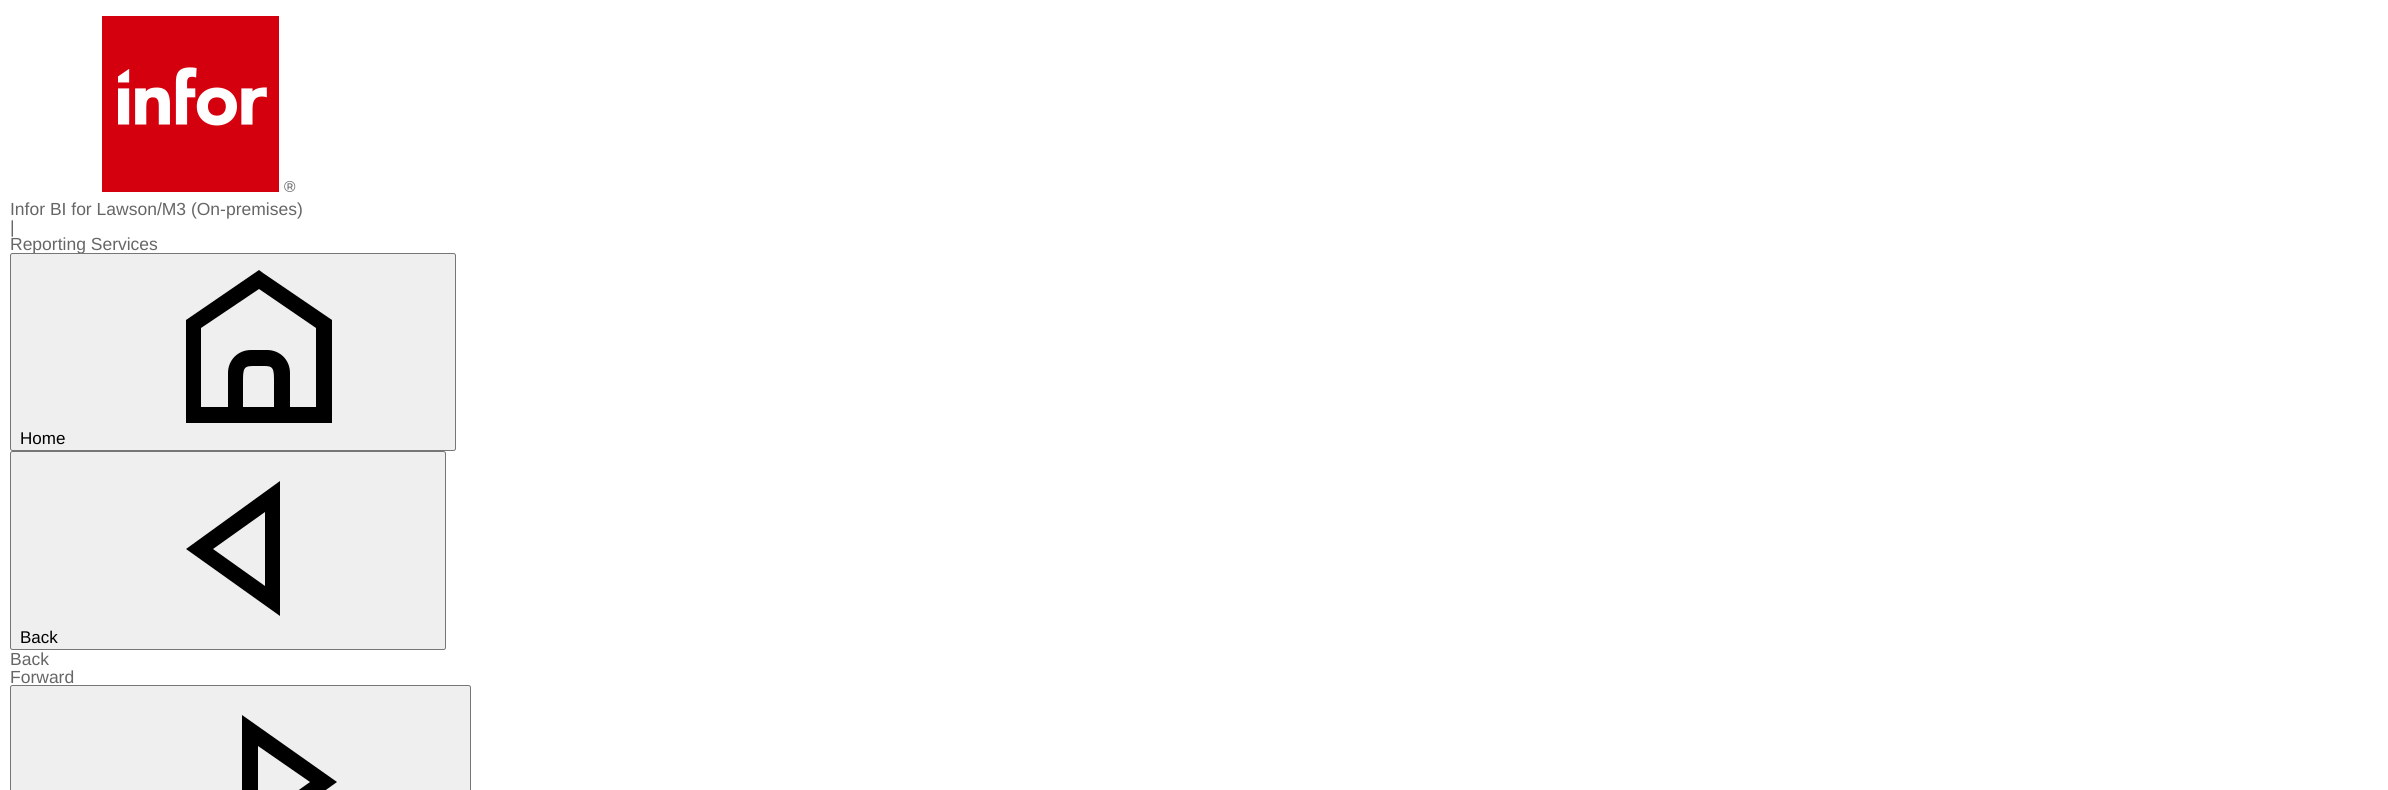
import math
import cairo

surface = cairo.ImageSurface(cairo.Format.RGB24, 2388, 790)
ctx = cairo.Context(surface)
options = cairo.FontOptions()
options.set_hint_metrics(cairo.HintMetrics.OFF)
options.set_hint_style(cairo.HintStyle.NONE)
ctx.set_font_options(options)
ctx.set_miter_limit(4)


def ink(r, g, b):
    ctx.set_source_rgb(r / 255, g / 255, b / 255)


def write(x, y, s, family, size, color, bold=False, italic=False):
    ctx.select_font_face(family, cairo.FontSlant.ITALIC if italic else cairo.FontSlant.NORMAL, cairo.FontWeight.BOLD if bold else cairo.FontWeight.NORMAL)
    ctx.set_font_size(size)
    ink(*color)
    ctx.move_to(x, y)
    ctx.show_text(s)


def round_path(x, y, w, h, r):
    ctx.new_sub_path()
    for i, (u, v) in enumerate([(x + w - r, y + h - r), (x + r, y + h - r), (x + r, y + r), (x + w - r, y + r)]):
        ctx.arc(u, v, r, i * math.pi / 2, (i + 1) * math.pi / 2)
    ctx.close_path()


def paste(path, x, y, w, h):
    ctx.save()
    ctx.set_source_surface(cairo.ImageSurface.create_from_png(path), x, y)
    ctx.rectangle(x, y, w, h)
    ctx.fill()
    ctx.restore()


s1 = dict(family="Liberation Sans", size=17.5, color=(102, 102, 102))
s2 = dict(family="Liberation Sans", size=17, color=(0, 0, 0))

ink(255, 255, 255)
ctx.paint()
paste("pic1.png", 102, 16, 194, 176)
write(10, 215, "Infor BI for Lawson/M3 (On-premises)", **s1)
write(10, 233, "|", **s1)
write(10, 250, "Reporting Services", **s1)
ink(239, 239, 239)
round_path(10.5, 253.5, 445, 197, 2)
ctx.fill_preserve()
ink(118, 118, 118)
ctx.set_line_width(1)
ctx.stroke()
ink(0, 0, 0)
ctx.set_fill_rule(cairo.FillRule.EVEN_ODD)
ctx.new_path()
ctx.move_to(263, 273)
ctx.line_to(259, 270)
ctx.line_to(186, 320)
ctx.line_to(186, 423)
ctx.line_to(332, 423)
ctx.line_to(332, 320)
ctx.close_path()
ctx.move_to(201, 407)
ctx.line_to(201, 328)
ctx.line_to(259, 289)
ctx.line_to(316, 328)
ctx.line_to(316, 407)
ctx.line_to(290, 407)
ctx.line_to(290, 373)
ctx.curve_to(290, 360, 280, 350, 267, 350)
ctx.line_to(251, 350)
ctx.curve_to(238, 350, 228, 360, 228, 373)
ctx.line_to(228, 407)
ctx.close_path()
ctx.move_to(243, 407)
ctx.line_to(274, 407)
ctx.line_to(274, 379)
ctx.curve_to(274, 365, 271, 366, 259, 366)
ctx.curve_to(246, 366, 243, 365, 243, 379)
ctx.close_path()
ctx.fill()
write(20, 444, "Home", **s2)
ink(239, 239, 239)
round_path(10.5, 451.5, 435, 198, 2)
ctx.fill_preserve()
ink(118, 118, 118)
ctx.stroke()
ink(0, 0, 0)
ctx.new_path()
ctx.move_to(280, 481)
ctx.line_to(186, 549)
ctx.line_to(280, 616)
ctx.close_path()
ctx.move_to(265, 512)
ctx.line_to(265, 586)
ctx.line_to(213, 549)
ctx.close_path()
ctx.fill()
write(20, 643, "Back", **s2)
write(10, 665, "Back", **s1)
write(10, 683, "Forward", **s1)
ink(239, 239, 239)
round_path(10.5, 685.5, 460, 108, 2)
ctx.fill_preserve()
ink(118, 118, 118)
ctx.stroke()
ink(0, 0, 0)
ctx.new_path()
ctx.move_to(242, 715)
ctx.line_to(337, 782)
ctx.line_to(242, 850)
ctx.close_path()
ctx.move_to(258, 746)
ctx.line_to(258, 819)
ctx.line_to(310, 782)
ctx.close_path()
ctx.fill()
surface.write_to_png("screenshot.png")
